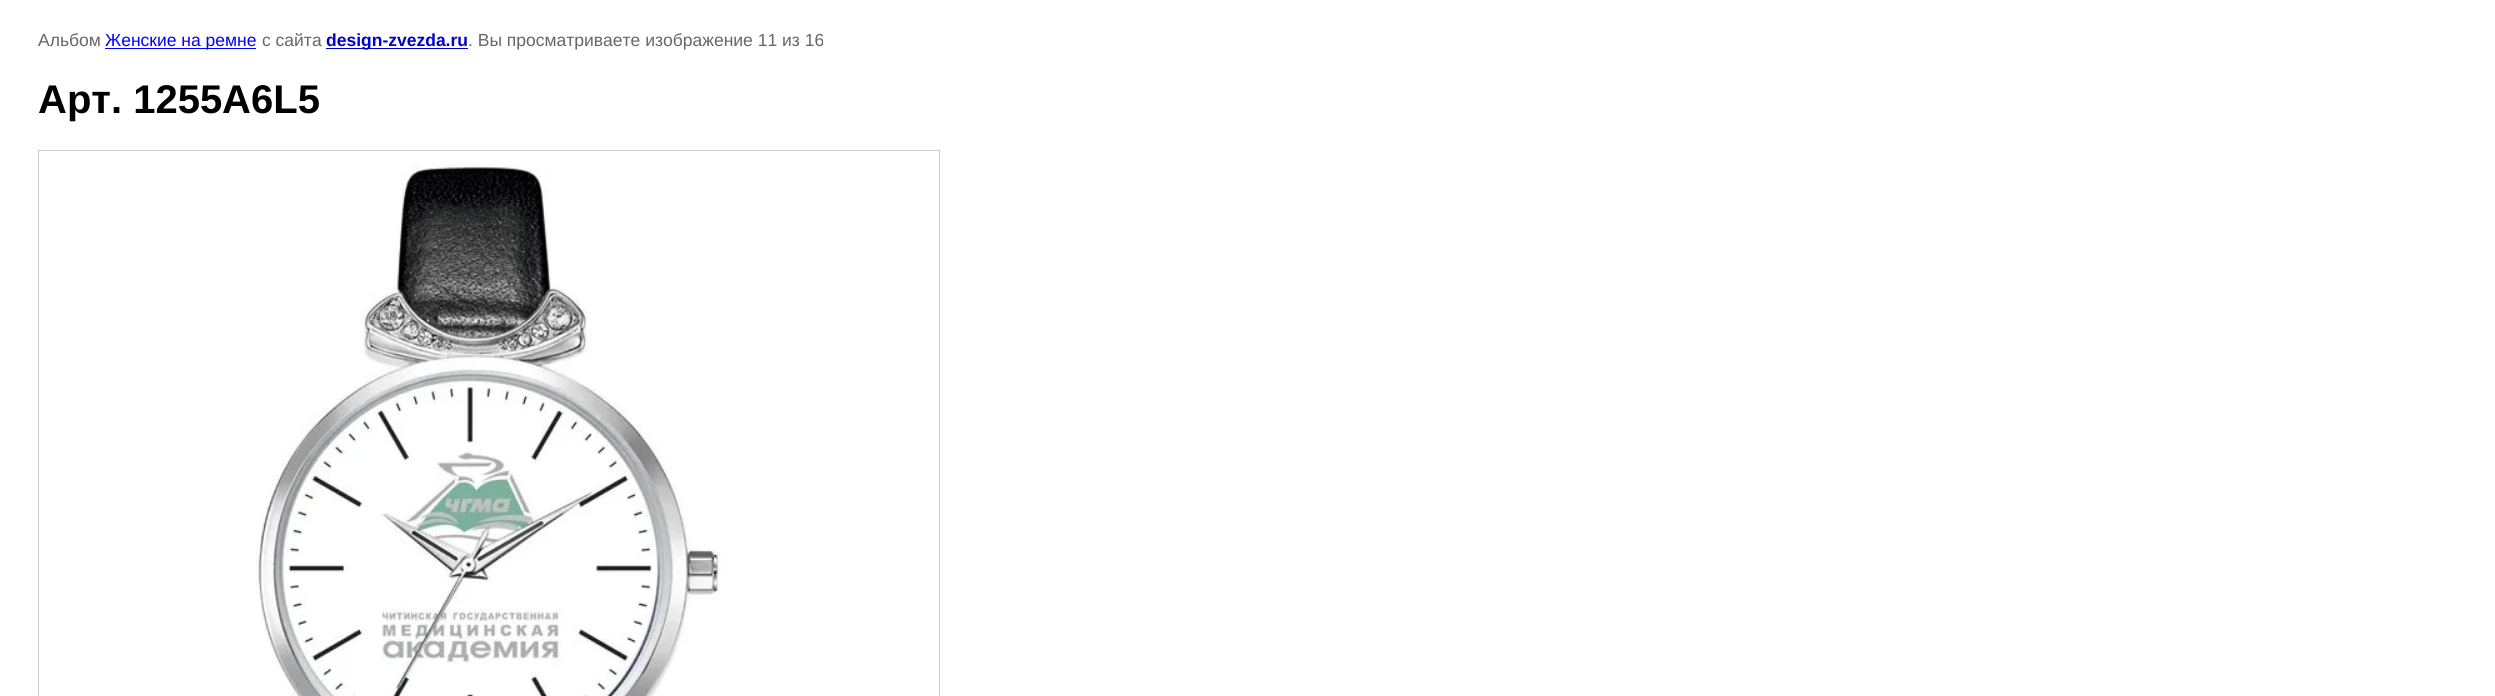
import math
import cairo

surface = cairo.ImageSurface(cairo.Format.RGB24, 2495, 696)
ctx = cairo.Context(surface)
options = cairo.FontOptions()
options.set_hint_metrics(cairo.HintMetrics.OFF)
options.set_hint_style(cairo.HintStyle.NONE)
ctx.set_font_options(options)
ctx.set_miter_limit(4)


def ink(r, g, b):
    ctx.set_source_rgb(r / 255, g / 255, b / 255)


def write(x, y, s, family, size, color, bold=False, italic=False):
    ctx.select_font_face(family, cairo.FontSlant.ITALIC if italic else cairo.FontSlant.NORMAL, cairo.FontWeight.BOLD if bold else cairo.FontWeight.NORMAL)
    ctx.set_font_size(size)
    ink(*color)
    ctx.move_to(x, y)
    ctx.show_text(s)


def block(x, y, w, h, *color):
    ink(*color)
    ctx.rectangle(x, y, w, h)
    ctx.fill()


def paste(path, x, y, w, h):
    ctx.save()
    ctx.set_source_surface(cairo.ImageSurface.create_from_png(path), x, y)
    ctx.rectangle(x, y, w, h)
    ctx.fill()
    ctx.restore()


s1 = dict(family="Liberation Sans", size=17.5, color=(102, 102, 102))
s2 = dict(family="Liberation Sans", size=17.5, color=(0, 0, 255))
s3 = dict(family="Liberation Sans", size=17.5, color=(0, 0, 204), bold=True)
s4 = dict(family="Liberation Sans", size=40, color=(0, 0, 0), bold=True)

ink(255, 255, 255)
ctx.paint()
write(38, 46, "Альбом", **s1)
block(105, 48, 151, 1, 0, 0, 255)
write(105, 46, "Женские на ремне", **s2)
write(262, 46, "с сайта", **s1)
block(326, 48, 142, 1, 0, 0, 204)
write(326, 46, "design-zvezda.ru", **s3)
write(468, 46, ". Вы просматриваете изображение 11 из 16", **s1)
write(38, 113, "Арт. 1255A6L5", **s4)
ctx.rectangle(38.5, 150.5, 901, 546)
ink(204, 204, 204)
ctx.set_line_width(1)
ctx.stroke()
paste("pic1.png", 256, 164, 465, 532)
surface.write_to_png("screenshot.png")
